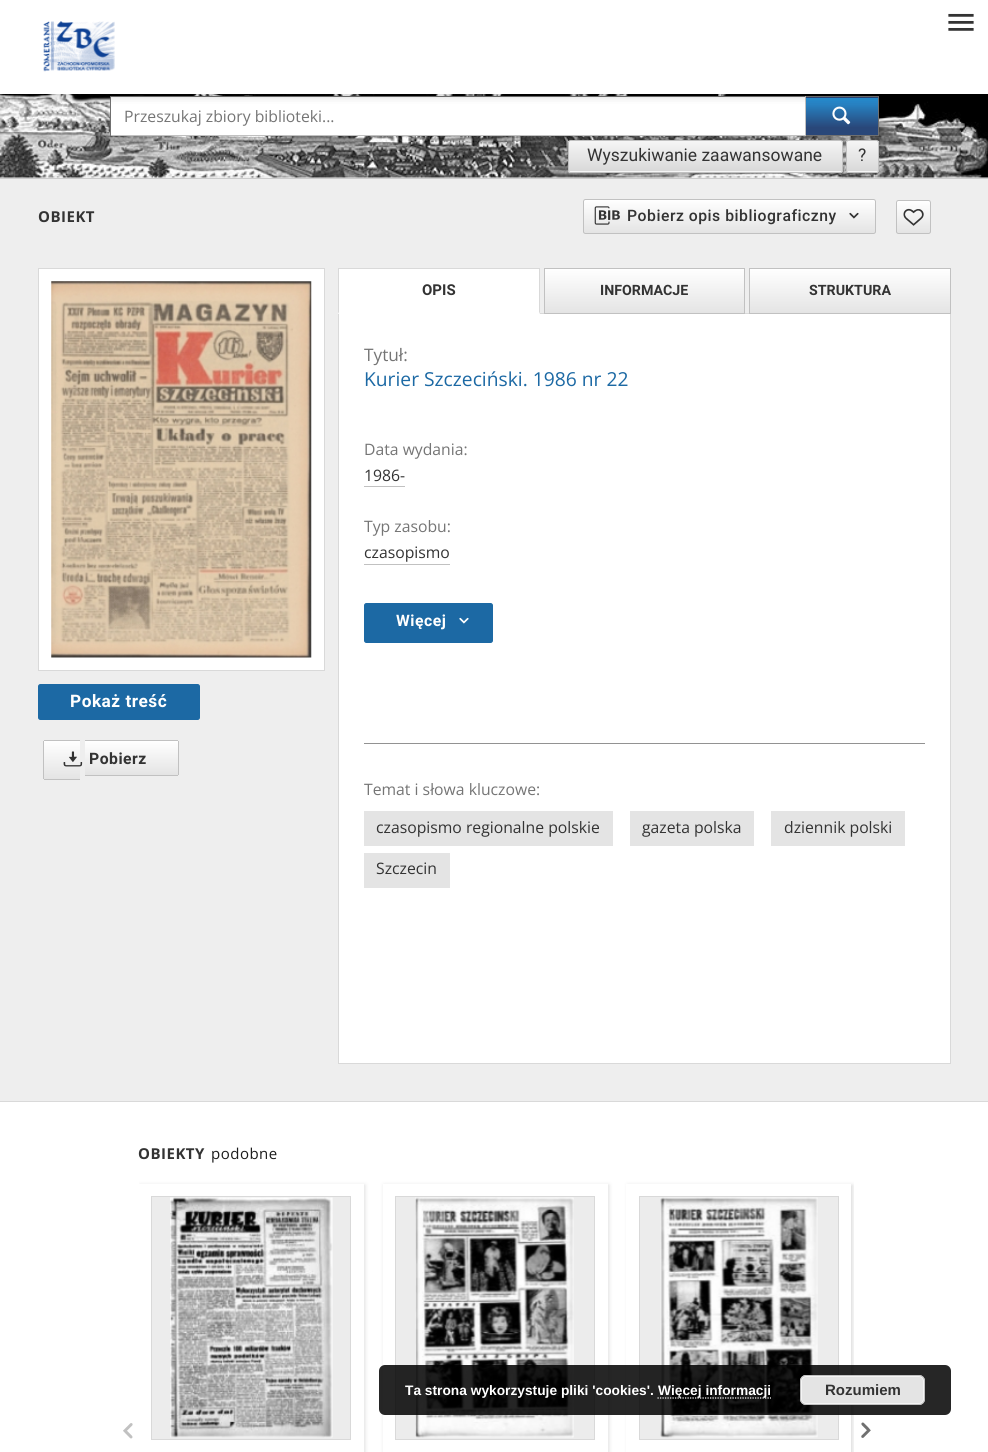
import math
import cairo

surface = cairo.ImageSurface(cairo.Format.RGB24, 988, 1452)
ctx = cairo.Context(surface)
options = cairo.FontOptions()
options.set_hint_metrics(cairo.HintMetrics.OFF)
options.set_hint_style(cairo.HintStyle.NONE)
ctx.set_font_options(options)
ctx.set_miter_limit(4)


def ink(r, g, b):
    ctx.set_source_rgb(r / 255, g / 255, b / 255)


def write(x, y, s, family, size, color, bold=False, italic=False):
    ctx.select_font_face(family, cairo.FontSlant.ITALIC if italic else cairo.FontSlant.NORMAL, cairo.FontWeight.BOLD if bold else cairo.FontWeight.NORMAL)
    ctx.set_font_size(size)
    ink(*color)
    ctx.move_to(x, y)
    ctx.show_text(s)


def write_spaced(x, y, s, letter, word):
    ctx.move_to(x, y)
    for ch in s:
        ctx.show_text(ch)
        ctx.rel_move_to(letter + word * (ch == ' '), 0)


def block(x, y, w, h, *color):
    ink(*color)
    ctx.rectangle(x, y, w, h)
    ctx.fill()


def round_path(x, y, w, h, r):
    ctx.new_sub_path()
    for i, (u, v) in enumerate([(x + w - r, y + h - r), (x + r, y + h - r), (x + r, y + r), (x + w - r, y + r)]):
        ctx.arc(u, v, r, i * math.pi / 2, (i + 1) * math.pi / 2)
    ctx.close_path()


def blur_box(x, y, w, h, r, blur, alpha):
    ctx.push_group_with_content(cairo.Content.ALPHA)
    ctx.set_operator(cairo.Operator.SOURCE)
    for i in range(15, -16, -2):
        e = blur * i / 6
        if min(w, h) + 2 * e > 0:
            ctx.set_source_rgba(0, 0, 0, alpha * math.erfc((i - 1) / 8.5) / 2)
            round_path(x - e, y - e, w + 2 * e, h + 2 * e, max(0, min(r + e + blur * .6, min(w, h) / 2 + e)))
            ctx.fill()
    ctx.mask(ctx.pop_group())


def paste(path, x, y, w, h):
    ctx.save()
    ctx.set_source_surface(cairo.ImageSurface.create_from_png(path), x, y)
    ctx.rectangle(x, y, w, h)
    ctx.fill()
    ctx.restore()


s1 = dict(family="Open Sans", size=15.75, color=(117, 117, 117))
s2 = dict(family="Roboto", size=17.5, color=(51, 51, 51))
s3 = dict(family="Roboto", size=15, color=(51, 51, 51), bold=True)
s4 = dict(family="Roboto", size=14.25, color=(51, 51, 51), bold=True)
s5 = dict(family="Open Sans", size=17.25, color=(117, 117, 117))
s6 = dict(family="Open Sans", size=19.25, color=(28, 105, 164))
s7 = dict(family="Open Sans", size=15.75, color=(51, 51, 51))
s8 = dict(family="Liberation Sans", size=13.75, color=(255, 255, 255), bold=True)
s9 = dict(family="Liberation Sans", size=15, color=(51, 51, 51), bold=True)

ink(255, 255, 255)
ctx.paint()
block(0, 177, 988, 1, 238, 238, 238)
paste("pic3.png", 0, 94, 988, 84)
block(111, 97, 694, 38, 255, 255, 255)
block(110, 96, 769, 1, 112, 112, 112)
block(805, 96, 1, 40, 193, 193, 193)
block(110, 135, 696, 1, 193, 193, 193)
block(110, 96, 1, 40, 112, 112, 112)
gradient = cairo.LinearGradient(842, 60, 842, 98)
gradient.add_color_stop_rgba(0, 0.149, 0.569, 0.835, 1)
gradient.add_color_stop_rgba(0.8, 0.161, 0.278, 0.475, 1)
gradient.add_color_stop_rgba(1, 0.161, 0.278, 0.475, 1)
ctx.set_source(gradient)
ctx.rectangle(806, 97, 73, 1)
ctx.fill()
gradient = cairo.LinearGradient(842, 98, 842, 135)
gradient.add_color_stop_rgba(0, 0.149, 0.569, 0.835, 1)
gradient.add_color_stop_rgba(0.8, 0.161, 0.278, 0.475, 1)
gradient.add_color_stop_rgba(1, 0.161, 0.278, 0.475, 1)
ctx.set_source(gradient)
ctx.rectangle(806, 98, 72, 37)
ctx.fill()
block(878, 96, 1, 40, 112, 112, 112)
paste("pic4.png", 832, 106, 19, 19)
ink(0, 0, 0)
blur_box(0, 1, 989, 94, 0, 6, 0.08)
blur_box(0, 5, 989, 94, 0, 3, 0.06)
blur_box(1, 4, 987, 91, 0, 2.5, 0.06)
block(0, 0, 988, 94, 255, 255, 255)
paste("pic1.png", 43, 21, 72, 51)
paste("pic2.png", 948, 13, 26, 18)
block(0, 178, 988, 1, 204, 204, 204)
write(124, 122, "Przeszukaj zbiory biblioteki...", **s1)
block(806, 135, 73, 1, 112, 112, 112)
gradient = cairo.LinearGradient(705, 141, 705, 171)
gradient.add_color_stop_rgba(0, 0.961, 0.961, 0.961, 1)
gradient.add_color_stop_rgba(1, 0.851, 0.851, 0.851, 1)
ctx.set_source(gradient)
ctx.rectangle(568, 141, 275, 30)
ctx.fill()
ctx.save()
round_path(568, 140, 275, 33, 2.5)
ctx.clip()
gradient = cairo.LinearGradient(705, 171, 705, 201)
gradient.add_color_stop_rgba(0, 0.961, 0.961, 0.961, 1)
gradient.add_color_stop_rgba(1, 0.851, 0.851, 0.851, 1)
ctx.set_source(gradient)
ctx.rectangle(568, 171, 275, 2)
ctx.fill()
ctx.restore()
round_path(568.5, 140.5, 274, 32, 2)
ink(193, 193, 193)
ctx.set_line_width(1)
ctx.stroke()
write(587, 161, "Wyszukiwanie zaawansowane", **s2)
gradient = cairo.LinearGradient(863, 141, 863, 171)
gradient.add_color_stop_rgba(0, 0.961, 0.961, 0.961, 1)
gradient.add_color_stop_rgba(1, 0.851, 0.851, 0.851, 1)
ctx.set_source(gradient)
ctx.rectangle(846, 141, 33, 30)
ctx.fill()
ctx.save()
round_path(846, 140, 33, 33, 2.5)
ctx.clip()
gradient = cairo.LinearGradient(863, 171, 863, 201)
gradient.add_color_stop_rgba(0, 0.961, 0.961, 0.961, 1)
gradient.add_color_stop_rgba(1, 0.851, 0.851, 0.851, 1)
ctx.set_source(gradient)
ctx.rectangle(846, 171, 33, 2)
ctx.fill()
ctx.restore()
round_path(846.5, 140.5, 32, 32, 2)
ink(193, 193, 193)
ctx.stroke()
write(858, 161, "?", **s2)
block(0, 179, 988, 922, 238, 238, 238)
ctx.select_font_face("Open Sans", cairo.FontSlant.NORMAL, cairo.FontWeight.BOLD)
ctx.set_font_size(15)
ink(51, 51, 51)
write_spaced(38, 222, "OBIEKT", 0.5, 0)
ctx.save()
round_path(583, 199, 293, 35, 2.5)
ctx.clip()
gradient = cairo.LinearGradient(729, 200, 729, 233)
gradient.add_color_stop_rgba(0, 1, 1, 1, 1)
gradient.add_color_stop_rgba(1, 0.894, 0.894, 0.894, 1)
ctx.set_source(gradient)
ctx.rectangle(583, 200, 293, 33)
ctx.fill()
ctx.restore()
round_path(583.5, 199.5, 292, 34, 2)
ink(193, 193, 193)
ctx.stroke()
paste("pic5.png", 594, 206, 26, 19)
ctx.select_font_face("Roboto Medium")
ctx.set_font_size(15.75)
ink(51, 51, 51)
write_spaced(627, 221, "Pobierz opis bibliograficzny", 0.5, 0)
paste("pic6.png", 849, 212, 10, 7)
ctx.save()
round_path(896, 200, 35, 34, 2.5)
ctx.clip()
gradient = cairo.LinearGradient(914, 201, 914, 233)
gradient.add_color_stop_rgba(0, 1, 1, 1, 1)
gradient.add_color_stop_rgba(1, 0.894, 0.894, 0.894, 1)
ctx.set_source(gradient)
ctx.rectangle(896, 201, 35, 32)
ctx.fill()
ctx.restore()
round_path(896.5, 200.5, 34, 33, 2)
ink(193, 193, 193)
ctx.stroke()
paste("pic7.png", 903, 208, 21, 18)
ink(255, 255, 255)
ctx.rectangle(38.5, 268.5, 286, 402)
ctx.fill_preserve()
ink(217, 217, 217)
ctx.stroke()
paste("pic8.png", 51, 281, 261, 377)
ink(28, 105, 164)
round_path(38.5, 684.5, 161, 35, 2)
ctx.fill_preserve()
ctx.stroke()
ctx.select_font_face("Roboto", cairo.FontSlant.NORMAL, cairo.FontWeight.BOLD)
ctx.set_font_size(17.25)
ink(255, 255, 255)
write_spaced(70, 707, "Pokaż treść", 0.5, 0)
gradient = cairo.LinearGradient(62, 741, 62, 779)
gradient.add_color_stop_rgba(0, 1, 1, 1, 1)
gradient.add_color_stop_rgba(1, 0.894, 0.894, 0.894, 1)
ctx.set_source(gradient)
ctx.rectangle(44, 741, 36, 38)
ctx.fill()
block(44, 740, 36, 1, 193, 193, 193)
block(44, 779, 36, 1, 193, 193, 193)
block(43, 741, 1, 38, 193, 193, 193)
gradient = cairo.LinearGradient(131, 741, 131, 775)
gradient.add_color_stop_rgba(0, 1, 1, 1, 1)
gradient.add_color_stop_rgba(1, 0.894, 0.894, 0.894, 1)
ctx.set_source(gradient)
ctx.rectangle(85, 741, 93, 34)
ctx.fill()
block(85, 740, 93, 1, 193, 193, 193)
block(178, 741, 1, 34, 193, 193, 193)
block(85, 775, 93, 1, 193, 193, 193)
paste("pic9.png", 63, 751, 20, 16)
ctx.set_font_size(15.75)
ink(51, 51, 51)
write_spaced(89, 764, "Pobierz", 0.5, 0)
block(540, 313, 209, 1, 217, 217, 217)
block(338, 269, 202, 45, 255, 255, 255)
block(338, 268, 202, 1, 217, 217, 217)
ctx.new_path()
ctx.move_to(540, 268)
ctx.line_to(540, 314)
ctx.line_to(539, 312)
ctx.line_to(539, 269)
ctx.close_path()
ctx.fill()
ctx.new_path()
ctx.move_to(338, 314)
ctx.line_to(338, 268)
ctx.line_to(339, 269)
ctx.line_to(339, 312)
ctx.close_path()
ctx.fill()
write(422, 295, "OPIS", **s3)
gradient = cairo.LinearGradient(644, 269, 644, 313)
gradient.add_color_stop_rgba(0, 1, 1, 1, 1)
gradient.add_color_stop_rgba(1, 0.894, 0.894, 0.894, 1)
ctx.set_source(gradient)
ctx.rectangle(545, 269, 199, 44)
ctx.fill()
ctx.rectangle(544.5, 268.5, 200, 45)
ink(193, 193, 193)
ctx.stroke()
write(600, 295, "INFORMACJE", **s4)
gradient = cairo.LinearGradient(850, 269, 850, 313)
gradient.add_color_stop_rgba(0, 1, 1, 1, 1)
gradient.add_color_stop_rgba(1, 0.894, 0.894, 0.894, 1)
ctx.set_source(gradient)
ctx.rectangle(750, 269, 200, 44)
ctx.fill()
ctx.rectangle(749.5, 268.5, 201, 45)
ink(193, 193, 193)
ctx.stroke()
write(809, 295, "STRUKTURA", **s4)
block(339, 314, 611, 749, 255, 255, 255)
block(950, 314, 1, 750, 217, 217, 217)
block(338, 1063, 613, 1, 217, 217, 217)
block(338, 314, 1, 750, 217, 217, 217)
write(364, 361, "Tytuł:", **s5)
write(364, 386, "Kurier Szczeciński. 1986 nr 22", **s6)
write(364, 455, "Data wydania:", **s1)
write(364, 481, "1986-", **s7)
block(364, 486, 41, 1, 193, 193, 193)
write(364, 532, "Typ zasobu:", **s1)
write(364, 558, "czasopismo", **s7)
block(364, 564, 86, 1, 193, 193, 193)
ink(28, 105, 164)
round_path(364.5, 603.5, 128, 39, 2)
ctx.fill_preserve()
ctx.stroke()
ctx.select_font_face("Roboto", cairo.FontSlant.NORMAL, cairo.FontWeight.BOLD)
ink(255, 255, 255)
write_spaced(396, 626, "Więcej", 0.5, 0)
paste("pic10.png", 459, 617, 10, 7)
block(364, 743, 561, 1, 146, 146, 146)
write(364, 795, "Temat i słowa kluczowe:", **s1)
block(364, 811, 249, 35, 228, 228, 228)
write(376, 833, "czasopismo regionalne polskie", **s7)
block(630, 811, 124, 35, 228, 228, 228)
write(642, 833, "gazeta polska", **s7)
block(771, 811, 134, 35, 228, 228, 228)
write(784, 833, "dziennik polski", **s7)
block(364, 853, 86, 35, 228, 228, 228)
write(376, 874, "Szczecin", **s7)
block(0, 1101, 988, 1, 217, 217, 217)
ctx.select_font_face("Open Sans", cairo.FontSlant.NORMAL, cairo.FontWeight.BOLD)
ctx.set_font_size(15)
ink(51, 51, 51)
write_spaced(138, 1159, "OBIEKTY", 0.5, 0)
ctx.select_font_face("Open Sans")
ink(28, 28, 28)
write_spaced(211, 1159, "podobne", 0.5, 0)
ctx.save()
ctx.rectangle(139, 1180, 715, 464)
ctx.clip()
ink(222, 222, 222)
blur_box(140, 1185, 225, 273, 0, 2, 1)
ctx.restore()
block(139, 1184, 225, 268, 255, 255, 255)
ink(236, 236, 236)
ctx.rectangle(151.5, 1196.5, 199, 243)
ctx.fill_preserve()
ink(217, 217, 217)
ctx.stroke()
paste("pic11.png", 170, 1197, 163, 241)
ink(222, 222, 222)
blur_box(384, 1185, 225, 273, 0, 2, 1)
block(383, 1184, 225, 268, 255, 255, 255)
ink(236, 236, 236)
ctx.rectangle(395.5, 1196.5, 199, 243)
ctx.fill_preserve()
ink(217, 217, 217)
ctx.stroke()
paste("pic12.png", 415, 1197, 159, 241)
ctx.save()
ctx.rectangle(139, 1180, 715, 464)
ctx.clip()
ink(222, 222, 222)
blur_box(628, 1185, 225, 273, 0, 2, 1)
ctx.restore()
block(626, 1184, 225, 268, 255, 255, 255)
ink(236, 236, 236)
ctx.rectangle(639.5, 1196.5, 199, 243)
ctx.fill_preserve()
ink(217, 217, 217)
ctx.stroke()
paste("pic13.png", 660, 1197, 158, 241)
paste("pic14.png", 123, 1423, 10, 16)
paste("pic15.png", 861, 1422, 10, 16)
ctx.set_source_rgba(0, 0, 0, 0.85)
round_path(379, 1365, 572, 50, 6)
ctx.fill()
write(405, 1395, "Ta strona wykorzystuje pliki 'cookies'.", **s8)
ctx.new_path()
ctx.move_to(657.5, 1398)
ctx.line_to(771, 1398)
ctx.set_line_width(1.2)
ctx.set_dash([1.25, 1.25])
ctx.stroke()
write(658, 1395, "Więcej informacji", **s8)
ink(228, 228, 228)
round_path(800, 1375, 125, 30, 6)
ctx.fill()
round_path(801.5, 1376.5, 122, 27, 4.5)
ink(245, 245, 245)
ctx.set_line_width(1)
ctx.set_dash([])
ctx.stroke()
round_path(800.5, 1375.5, 124, 29, 5.5)
ink(193, 193, 193)
ctx.stroke()
write(825, 1395, "Rozumiem", **s9)
surface.write_to_png("screenshot.png")
